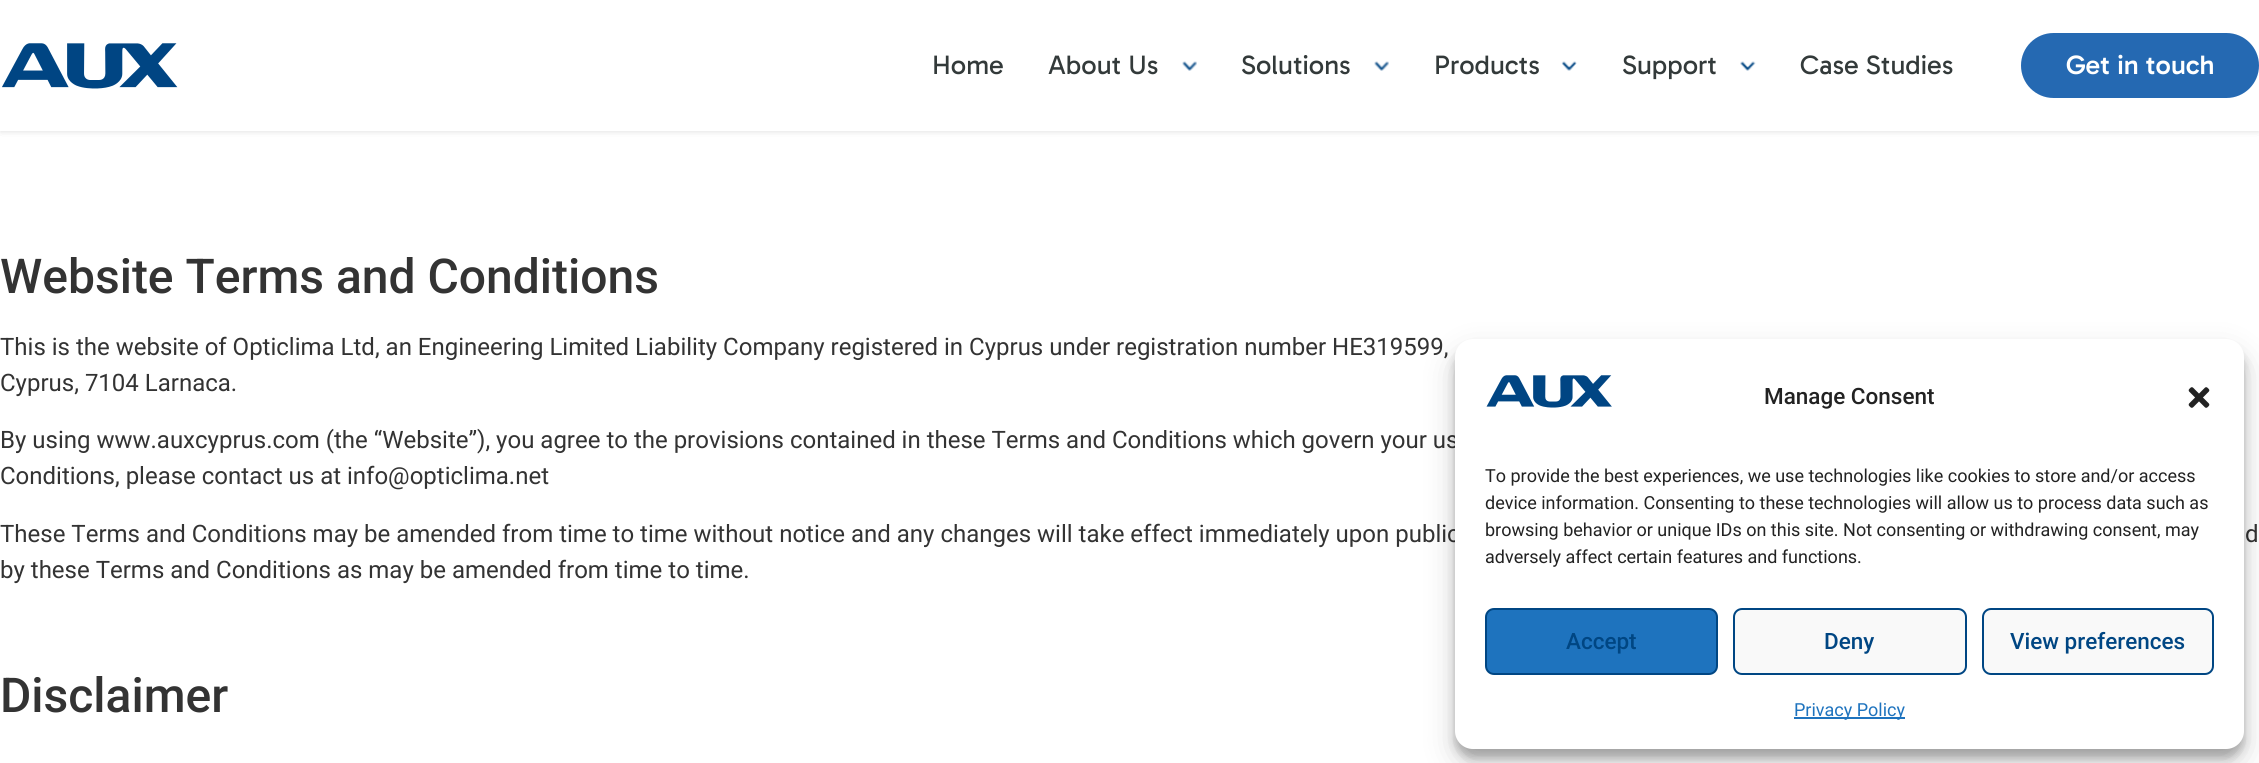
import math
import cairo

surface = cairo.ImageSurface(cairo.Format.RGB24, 2259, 763)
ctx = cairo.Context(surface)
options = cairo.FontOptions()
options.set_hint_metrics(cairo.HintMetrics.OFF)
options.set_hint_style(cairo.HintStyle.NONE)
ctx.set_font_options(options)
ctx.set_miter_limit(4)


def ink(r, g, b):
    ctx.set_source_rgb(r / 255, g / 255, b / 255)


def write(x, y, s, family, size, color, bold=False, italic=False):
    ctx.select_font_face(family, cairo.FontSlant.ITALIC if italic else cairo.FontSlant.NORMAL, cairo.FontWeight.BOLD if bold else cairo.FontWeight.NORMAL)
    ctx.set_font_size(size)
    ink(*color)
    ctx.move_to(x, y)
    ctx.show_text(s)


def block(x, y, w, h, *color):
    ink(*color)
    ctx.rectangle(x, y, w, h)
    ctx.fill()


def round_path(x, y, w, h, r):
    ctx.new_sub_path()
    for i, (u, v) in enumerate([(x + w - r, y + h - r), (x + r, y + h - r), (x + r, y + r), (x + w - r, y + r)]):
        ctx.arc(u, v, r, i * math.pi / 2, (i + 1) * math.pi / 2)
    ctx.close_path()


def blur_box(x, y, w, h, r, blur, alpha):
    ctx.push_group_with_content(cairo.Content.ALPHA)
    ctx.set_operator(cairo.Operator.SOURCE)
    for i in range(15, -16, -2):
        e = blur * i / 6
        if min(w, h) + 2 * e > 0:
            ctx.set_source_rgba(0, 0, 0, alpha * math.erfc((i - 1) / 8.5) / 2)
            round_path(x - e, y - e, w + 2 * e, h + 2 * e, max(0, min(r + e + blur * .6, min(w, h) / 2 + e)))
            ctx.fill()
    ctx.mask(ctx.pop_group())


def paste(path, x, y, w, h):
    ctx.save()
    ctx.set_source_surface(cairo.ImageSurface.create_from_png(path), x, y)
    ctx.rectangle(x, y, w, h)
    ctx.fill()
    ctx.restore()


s1 = dict(family="Gabarito", size=27, color=(51, 58, 58))
s2 = dict(family="Gabarito Medium", size=27, color=(255, 255, 255))
s3 = dict(family="Roboto Medium", size=48, color=(51, 51, 51))
s4 = dict(family="Roboto", size=24, color=(51, 51, 51))
s5 = dict(family="Roboto Medium", size=22.5, color=(34, 34, 34))
s6 = dict(family="Roboto", size=18, color=(34, 34, 34))
s7 = dict(family="Roboto Medium", size=22.5, color=(0, 70, 131))
s8 = dict(family="Roboto", size=18, color=(30, 115, 190))

ink(255, 255, 255)
ctx.paint()
ink(0, 0, 0)
blur_box(0, 2, 2259, 130, 0, 3, 0.06)
blur_box(0, 2, 2259, 130, 0, 3, 0.06)
block(0, 0, 2259, 131, 255, 255, 255)
paste("pic1.png", 2, 43, 176, 46)
write(932, 74, "Home", **s1)
write(1048, 74, "About Us", **s1)
paste("pic2.png", 1182, 61, 15, 10)
write(1241, 74, "Solutions", **s1)
paste("pic2.png", 1374, 61, 15, 10)
write(1434, 74, "Products", **s1)
paste("pic3.png", 1561, 61, 16, 10)
write(1622, 74, "Support", **s1)
paste("pic4.png", 1740, 61, 16, 10)
write(1800, 74, "Case Studies", **s1)
ink(37, 105, 178)
round_path(2021, 33, 238, 65, 32.5)
ctx.fill()
write(2066, 74, "Get in touch", **s2)
write(0, 293, "Website Terms and Conditions", **s3)
write(0, 355, "This is the website of Opticlima Ltd, an Engineering Limited Liability Company registered in Cyprus under registration number HE319599,", **s4)
write(0, 391, "Cyprus, 7104 Larnaca.", **s4)
write(0, 448, "By using www.auxcyprus.com (the “Website”), you agree to the provisions contained in these Terms and Conditions which govern your us", **s4)
write(0, 484, "Conditions, please contact us at info@opticlima.net", **s4)
write(0, 542, "These Terms and Conditions may be amended from time to time without notice and any changes will take effect immediately upon public", **s4)
write(2245, 542, "d", **s4)
write(0, 578, "by these Terms and Conditions as may be amended from time to time.", **s4)
write(0, 712, "Disclaimer", **s3)
ink(0, 0, 0)
blur_box(1455, 348, 789, 410, 18, 4.5, 0.23)
blur_box(1455, 354, 789, 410, 18, 15, 0.19)
ink(255, 255, 255)
round_path(1455, 339, 789, 410, 18)
ctx.fill()
paste("pic5.png", 1486, 375, 126, 33)
write(1764, 404, "Manage Consent", **s5)
paste("pic6.png", 2188, 387, 22, 21)
write(1485, 482, "To provide the best experiences, we use technologies like cookies to store and/or access", **s6)
write(1485, 509, "device information. Consenting to these technologies will allow us to process data such as", **s6)
write(1485, 536, "browsing behavior or unique IDs on this site. Not consenting or withdrawing consent, may", **s6)
write(1485, 563, "adversely affect certain features and functions.", **s6)
ink(30, 115, 190)
round_path(1486, 609, 231, 65, 8)
ctx.fill_preserve()
ink(0, 70, 131)
ctx.stroke()
write(1566, 649, "Accept", **s7)
ink(249, 249, 249)
round_path(1734, 609, 232, 65, 8)
ctx.fill_preserve()
ink(0, 70, 131)
ctx.stroke()
write(1824, 649, "Deny", **s7)
ink(249, 249, 249)
round_path(1983, 609, 230, 65, 8)
ctx.fill_preserve()
ink(0, 70, 131)
ctx.stroke()
write(2010, 649, "View preferences", **s7)
block(1794, 717, 111, 2, 30, 115, 190)
write(1794, 716, "Privacy Policy", **s8)
surface.write_to_png("screenshot.png")
